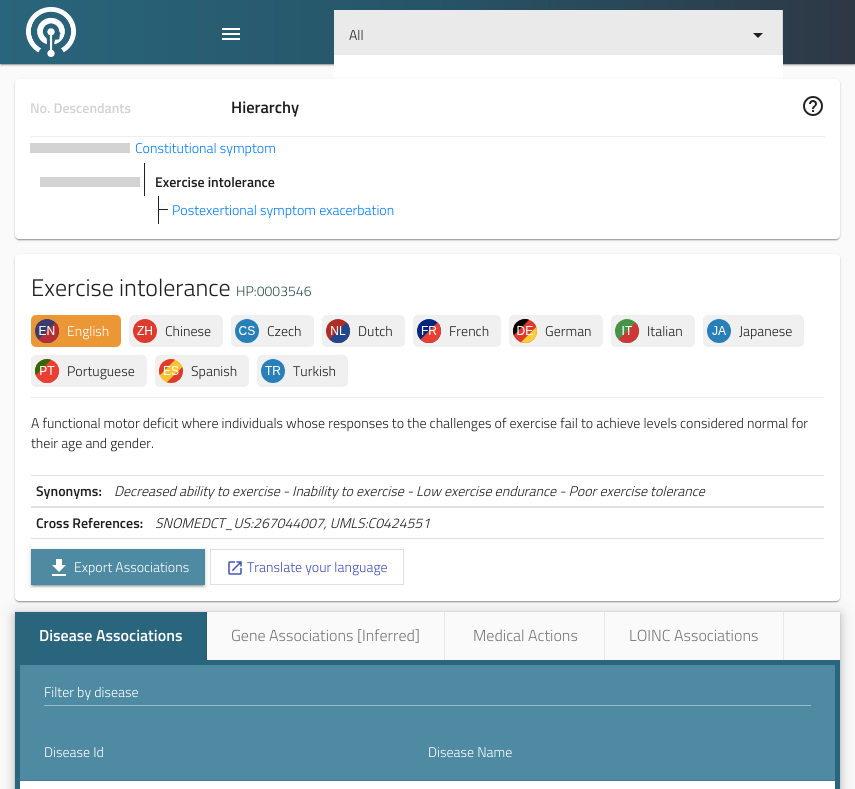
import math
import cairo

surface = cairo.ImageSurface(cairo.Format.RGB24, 855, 789)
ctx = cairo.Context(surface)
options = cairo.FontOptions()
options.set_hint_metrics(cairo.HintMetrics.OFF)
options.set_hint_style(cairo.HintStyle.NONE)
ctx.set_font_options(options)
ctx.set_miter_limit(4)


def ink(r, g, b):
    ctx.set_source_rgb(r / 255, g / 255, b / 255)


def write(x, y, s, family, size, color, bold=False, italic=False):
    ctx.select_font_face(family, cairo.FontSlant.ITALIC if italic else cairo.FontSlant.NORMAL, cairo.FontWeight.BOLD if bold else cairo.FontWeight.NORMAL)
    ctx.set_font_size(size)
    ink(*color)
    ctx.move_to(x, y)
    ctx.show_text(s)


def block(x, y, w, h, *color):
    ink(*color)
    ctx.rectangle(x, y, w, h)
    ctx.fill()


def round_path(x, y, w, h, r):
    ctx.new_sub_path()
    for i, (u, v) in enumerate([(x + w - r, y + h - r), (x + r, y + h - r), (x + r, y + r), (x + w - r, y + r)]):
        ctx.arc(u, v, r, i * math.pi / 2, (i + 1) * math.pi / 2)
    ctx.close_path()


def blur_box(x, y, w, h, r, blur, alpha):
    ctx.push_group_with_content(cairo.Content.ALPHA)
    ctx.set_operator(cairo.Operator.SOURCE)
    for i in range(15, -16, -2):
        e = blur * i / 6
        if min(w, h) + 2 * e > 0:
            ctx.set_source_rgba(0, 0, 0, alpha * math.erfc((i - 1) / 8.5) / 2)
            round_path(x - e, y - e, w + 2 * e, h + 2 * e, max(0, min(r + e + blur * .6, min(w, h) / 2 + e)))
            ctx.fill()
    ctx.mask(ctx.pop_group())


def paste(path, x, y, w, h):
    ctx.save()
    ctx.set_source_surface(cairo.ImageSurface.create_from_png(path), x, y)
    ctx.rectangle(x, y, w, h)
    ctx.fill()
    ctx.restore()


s1 = dict(family="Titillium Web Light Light", size=14, color=(30, 30, 30))
s2 = dict(family="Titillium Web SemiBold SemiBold", size=14, color=(211, 211, 211))
s3 = dict(family="Titillium Web SemiBold SemiBold", size=16.5, color=(30, 30, 30))
s4 = dict(family="Titillium Web Light Light", size=14, color=(0, 123, 255))
s5 = dict(family="Titillium Web SemiBold SemiBold", size=14, color=(30, 30, 30))
s6 = dict(family="Titillium Web Light Light", size=24, color=(30, 30, 30))
s7 = dict(family="Titillium Web Light Light", size=14, color=(47, 79, 79))
s8 = dict(family="Titillium Web Light Light", size=14, color=(255, 255, 255))
s9 = dict(family="Titillium Web Light Light", size=14, color=(30, 30, 30), italic=True)
s10 = dict(family="Titillium Web Light Light", size=14, color=(63, 81, 181))
s11 = dict(family="Titillium Web SemiBold SemiBold", size=16, color=(255, 255, 255))
s12 = dict(family="Titillium Web Light Light", size=16, color=(120, 120, 120))

ink(250, 250, 250)
ctx.paint()
ink(0, 0, 0)
blur_box(0, 1, 855, 64, 0, 1.5, 0.12)
blur_box(0, 1, 855, 64, 0, 0.5, 0.14)
blur_box(1, 3, 853, 62, 0, 0.5, 0.2)
gradient = cairo.LinearGradient(0, 32, 855, 32)
gradient.add_color_stop_rgba(0, 0.161, 0.396, 0.486, 1)
gradient.add_color_stop_rgba(0.46, 0.153, 0.337, 0.412, 1)
gradient.add_color_stop_rgba(0.51, 0.153, 0.329, 0.404, 1)
gradient.add_color_stop_rgba(0.88, 0.169, 0.247, 0.306, 1)
gradient.add_color_stop_rgba(1, 0.18, 0.22, 0.267, 1)
ctx.set_source(gradient)
ctx.rectangle(0, 0, 855, 64)
ctx.fill()
paste("pic1.png", 26, 7, 50, 50)
paste("pic2.png", 222, 28, 18, 12)
block(334, 10, 448, 45, 234, 234, 234)
block(782, 10, 1, 45, 211, 211, 211)
write(349, 40, "All", **s1)
ctx.new_path()
ctx.move_to(753, 33)
ctx.line_to(763, 33)
ctx.line_to(758, 38)
ctx.close_path()
ctx.fill()
block(334, 55, 449, 24, 255, 255, 255)
ink(0, 0, 0)
blur_box(15, 80, 825, 160, 4, 1.5, 0.12)
blur_box(15, 80, 825, 160, 4, 0.5, 0.14)
blur_box(16, 82, 823, 158, 3, 0.5, 0.2)
ink(255, 255, 255)
round_path(15, 79, 825, 160, 4)
ctx.fill()
write(30, 113, "No. Descendants", **s2)
write(231, 113, "Hierarchy", **s3)
paste("pic3.png", 803, 96, 20, 20)
block(30, 136, 795, 1, 238, 238, 238)
block(30, 143, 100, 10, 211, 211, 211)
write(135, 153, "Constitutional symptom", **s4)
block(144, 163, 1, 33, 33, 33, 33)
block(40, 177, 100, 10, 211, 211, 211)
write(155, 187, "Exercise intolerance", **s5)
block(158, 196, 1, 28, 33, 33, 33)
block(158, 209, 10, 1, 33, 33, 33)
write(172, 215, "Postexertional symptom exacerbation", **s4)
ink(0, 0, 0)
blur_box(15, 255, 825, 347, 4, 1.5, 0.12)
blur_box(15, 255, 825, 347, 4, 0.5, 0.14)
blur_box(16, 257, 823, 345, 3, 0.5, 0.2)
ctx.save()
ctx.set_fill_rule(cairo.FillRule.EVEN_ODD)
ctx.new_path()
ctx.move_to(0, 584)
ctx.line_to(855, 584)
ctx.line_to(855, 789)
ctx.line_to(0, 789)
ctx.close_path()
ctx.move_to(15, 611)
ctx.line_to(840, 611)
ctx.line_to(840, 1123)
ctx.line_to(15, 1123)
ctx.close_path()
ctx.clip()
blur_box(15, 612, 825, 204, 0, 9, 0.12)
ctx.restore()
ink(255, 255, 255)
round_path(15, 254, 825, 347, 4)
ctx.fill()
write(31, 296, "Exercise intolerance", **s6)
write(236, 296, "HP:0003546", **s7)
ink(236, 151, 54)
round_path(31, 315, 90, 32, 5)
ctx.fill()
paste("pic4.png", 35, 319, 24, 24)
write(67, 336, "English", **s8)
ink(241, 240, 240)
round_path(129, 315, 94, 32, 5)
ctx.fill()
paste("pic5.png", 133, 319, 24, 24)
write(165, 336, "Chinese", **s1)
ink(241, 240, 240)
round_path(231, 315, 83, 32, 5)
ctx.fill()
paste("pic6.png", 235, 319, 24, 24)
write(267, 336, "Czech", **s1)
ink(241, 240, 240)
round_path(322, 315, 83, 32, 5)
ctx.fill()
paste("pic7.png", 326, 319, 24, 24)
write(358, 336, "Dutch", **s1)
ink(241, 240, 240)
round_path(413, 315, 88, 32, 5)
ctx.fill()
paste("pic8.png", 417, 319, 24, 24)
write(449, 336, "French", **s1)
ink(241, 240, 240)
round_path(509, 315, 94, 32, 5)
ctx.fill()
paste("pic9.png", 513, 319, 24, 24)
write(545, 336, "German", **s1)
ink(241, 240, 240)
round_path(611, 315, 84, 32, 5)
ctx.fill()
paste("pic10.png", 615, 319, 24, 24)
write(647, 336, "Italian", **s1)
ink(241, 240, 240)
round_path(703, 315, 101, 32, 5)
ctx.fill()
paste("pic11.png", 707, 319, 24, 24)
write(739, 336, "Japanese", **s1)
ink(241, 240, 240)
round_path(31, 355, 116, 32, 5)
ctx.fill()
paste("pic12.png", 35, 359, 24, 24)
write(67, 376, "Portuguese", **s1)
ink(241, 240, 240)
round_path(155, 355, 94, 32, 5)
ctx.fill()
paste("pic13.png", 159, 359, 24, 24)
write(191, 376, "Spanish", **s1)
ink(241, 240, 240)
round_path(257, 355, 91, 32, 5)
ctx.fill()
paste("pic14.png", 261, 359, 24, 24)
write(293, 376, "Turkish", **s1)
block(31, 397, 793, 1, 238, 238, 238)
write(31, 428, "A functional motor deficit where individuals whose responses to the challenges of exercise fail to achieve levels considered normal for", **s1)
write(31, 448, "their age and gender.", **s1)
block(31, 475, 793, 1, 224, 224, 224)
write(36, 496, "Synonyms:", **s5)
write(114, 496, "Decreased ability to exercise - Inability to exercise - Low exercise endurance - Poor exercise tolerance", **s9)
block(31, 506, 793, 2, 224, 224, 224)
write(36, 528, "Cross References:", **s5)
write(155, 528, "SNOMEDCT_US:267044007, UMLS:C0424551", **s9)
block(31, 538, 793, 1, 224, 224, 224)
ink(0, 0, 0)
blur_box(31, 550, 174, 36, 0, 2.5, 0.12)
blur_box(31, 551, 174, 36, 0, 1, 0.14)
blur_box(33, 554, 170, 32, 0, 0.5, 0.2)
block(31, 549, 174, 36, 78, 139, 162)
paste("pic15.png", 52, 559, 14, 17)
write(74, 572, "Export Associations", **s8)
ctx.rectangle(210.5, 549.5, 193, 35)
ink(224, 224, 224)
ctx.set_line_width(1)
ctx.stroke()
paste("pic16.png", 228, 561, 14, 14)
write(247, 572, "Translate your language", **s10)
ctx.save()
ctx.set_fill_rule(cairo.FillRule.EVEN_ODD)
ctx.new_path()
ctx.move_to(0, 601)
ctx.line_to(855, 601)
ctx.line_to(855, 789)
ctx.line_to(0, 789)
ctx.close_path()
ctx.move_to(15, 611)
ctx.line_to(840, 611)
ctx.line_to(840, 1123)
ctx.line_to(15, 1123)
ctx.close_path()
ctx.clip()
ink(0, 0, 0)
blur_box(15, 617, 825, 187, 0, 5, 0.14)
ctx.restore()
ctx.save()
ctx.set_fill_rule(cairo.FillRule.EVEN_ODD)
ctx.new_path()
ctx.move_to(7, 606)
ctx.line_to(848, 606)
ctx.line_to(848, 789)
ctx.line_to(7, 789)
ctx.close_path()
ctx.move_to(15, 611)
ctx.line_to(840, 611)
ctx.line_to(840, 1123)
ctx.line_to(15, 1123)
ctx.close_path()
ctx.clip()
ink(0, 0, 0)
blur_box(16, 615, 823, 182, 0, 2.5, 0.2)
ctx.restore()
block(15, 611, 825, 1, 220, 220, 220)
block(15, 660, 825, 5, 41, 101, 124)
block(15, 612, 191, 48, 41, 101, 124)
block(206, 612, 1, 48, 36, 89, 109)
write(39, 641, "Disease Associations", **s11)
block(444, 612, 1, 48, 232, 232, 232)
write(231, 641, "Gene Associations [Inferred]", **s12)
block(604, 612, 1, 48, 232, 232, 232)
write(473, 641, "Medical Actions", **s12)
block(783, 612, 1, 48, 232, 232, 232)
write(629, 641, "LOINC Associations", **s12)
block(835, 665, 5, 124, 41, 101, 124)
block(15, 665, 5, 124, 41, 101, 124)
block(20, 665, 815, 115, 78, 139, 162)
write(44, 697, "Filter by disease", **s8)
block(44, 705, 767, 1, 152, 188, 201)
block(20, 781, 815, 8, 255, 255, 255)
block(20, 780, 815, 1, 69, 122, 143)
write(44, 757, "Disease Id", **s8)
write(428, 757, "Disease Name", **s8)
surface.write_to_png("screenshot.png")
